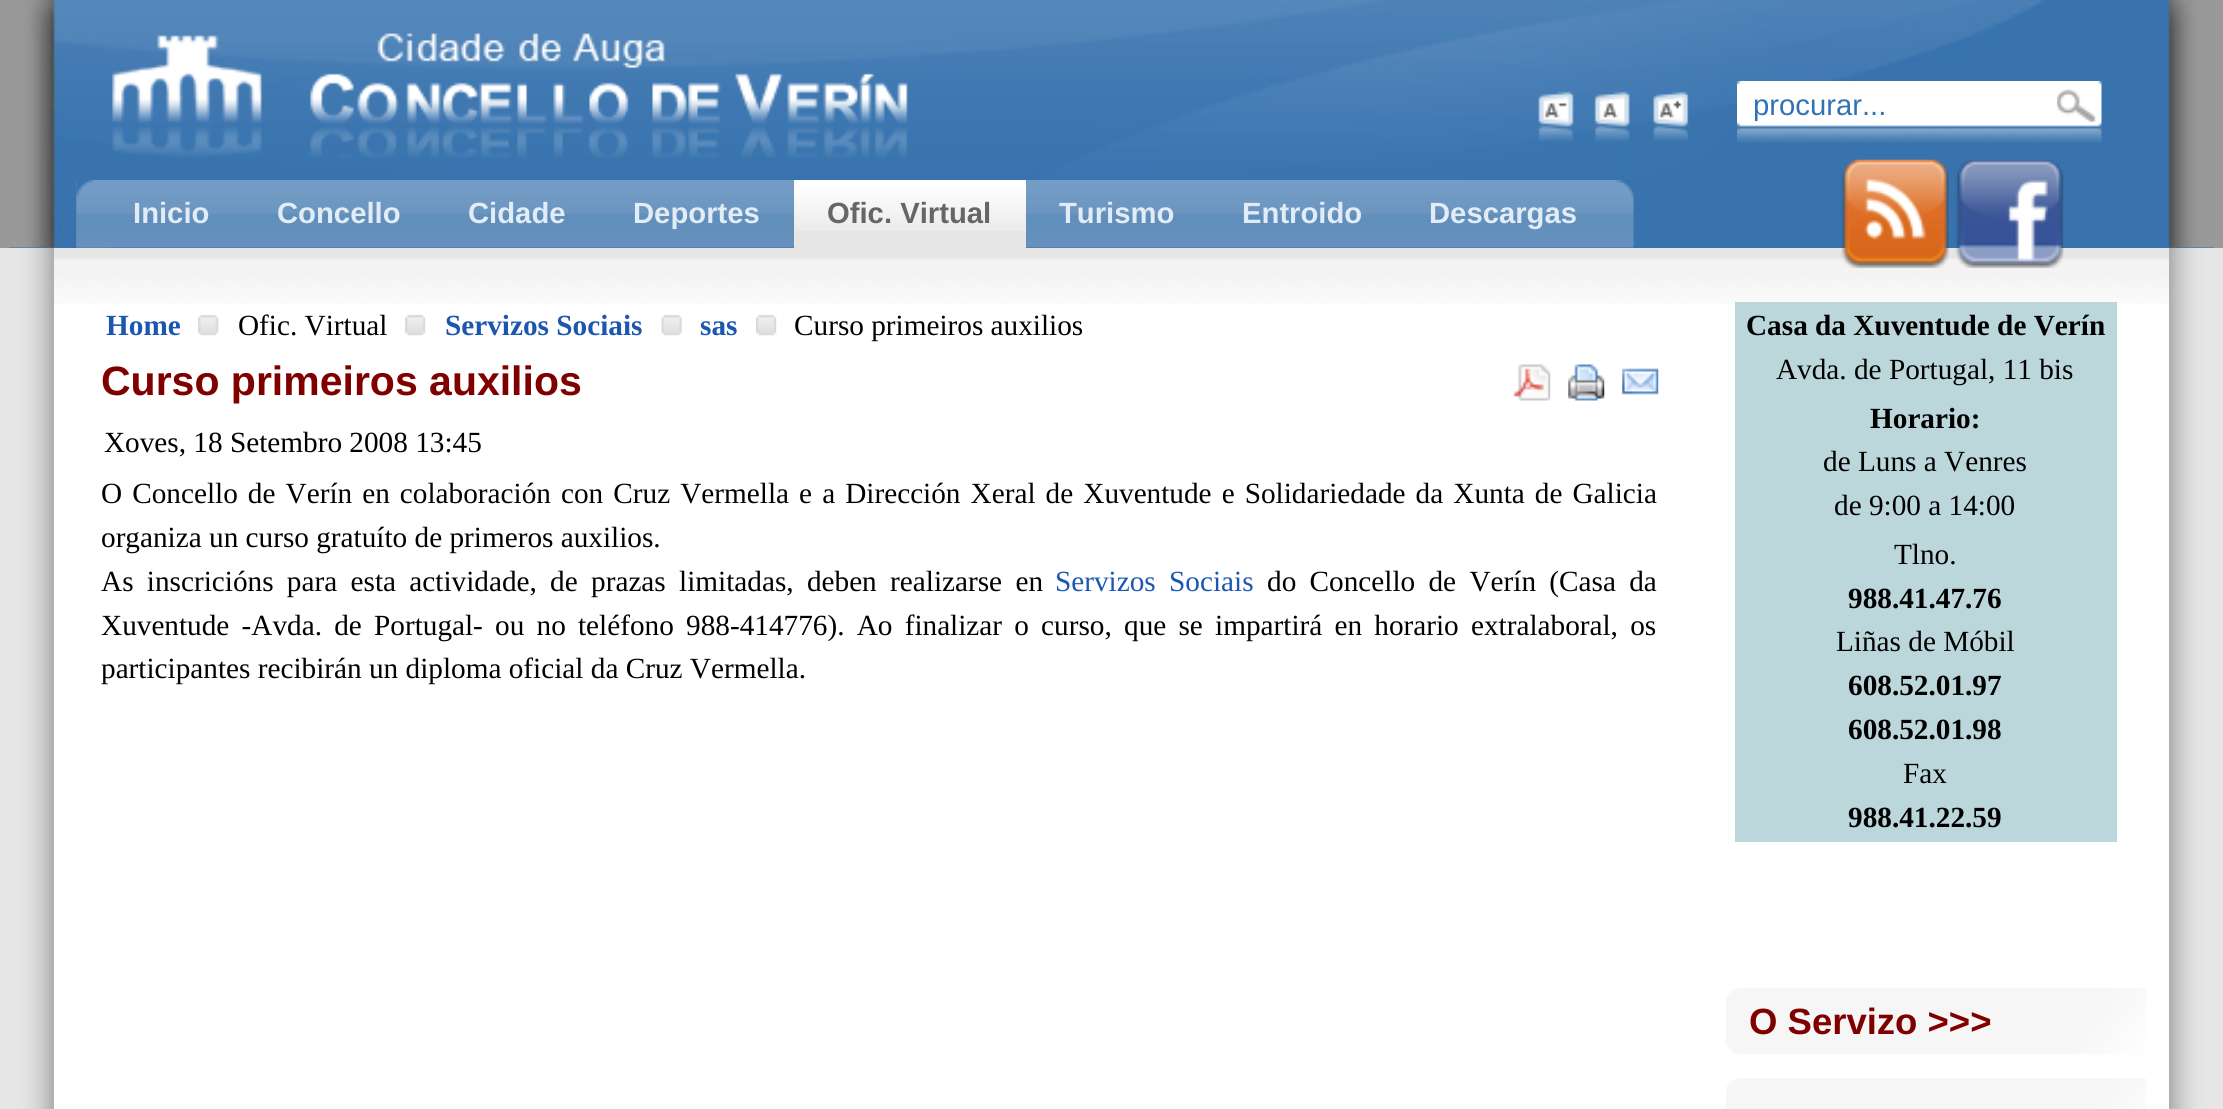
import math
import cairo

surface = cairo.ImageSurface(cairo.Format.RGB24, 2223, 1109)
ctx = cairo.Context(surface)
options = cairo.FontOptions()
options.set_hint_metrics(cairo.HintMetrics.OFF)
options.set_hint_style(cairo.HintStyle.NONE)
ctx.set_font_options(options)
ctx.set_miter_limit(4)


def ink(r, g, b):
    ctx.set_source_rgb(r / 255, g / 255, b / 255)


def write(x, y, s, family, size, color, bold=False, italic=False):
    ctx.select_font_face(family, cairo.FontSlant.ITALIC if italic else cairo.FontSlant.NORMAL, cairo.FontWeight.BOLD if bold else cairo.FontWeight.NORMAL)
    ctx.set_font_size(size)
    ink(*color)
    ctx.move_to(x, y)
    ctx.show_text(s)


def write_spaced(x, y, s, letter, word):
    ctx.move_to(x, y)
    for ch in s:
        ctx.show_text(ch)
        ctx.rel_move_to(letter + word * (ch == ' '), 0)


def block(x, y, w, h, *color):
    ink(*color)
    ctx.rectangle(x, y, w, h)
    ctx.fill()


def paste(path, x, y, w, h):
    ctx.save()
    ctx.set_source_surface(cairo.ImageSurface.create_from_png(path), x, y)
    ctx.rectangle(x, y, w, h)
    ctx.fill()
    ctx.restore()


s1 = dict(family="Liberation Sans", size=29.25, color=(49, 114, 180))
s2 = dict(family="Liberation Sans", size=29.25, color=(225, 236, 246), bold=True)
s3 = dict(family="Liberation Sans", size=29.25, color=(102, 102, 102), bold=True)
s4 = dict(family="Liberation Serif", size=29.25, color=(27, 87, 177), bold=True)
s5 = dict(family="Liberation Serif", size=29.25, color=(0, 0, 0))
s6 = dict(family="Liberation Sans", size=41, color=(128, 0, 0), bold=True)
s7 = dict(family="Liberation Serif", size=29.25, color=(0, 0, 0), bold=True)
s8 = dict(family="Liberation Sans", size=36.5, color=(128, 0, 0), bold=True)

ink(230, 230, 230)
ctx.paint()
block(0, 0, 2223, 248, 153, 153, 153)
block(9, 247, 2205, 1, 49, 114, 180)
paste("pic1.png", 9, 0, 2205, 248)
paste("pic2.png", 112, 33, 796, 125)
paste("pic3.png", 1538, 91, 36, 50)
paste("pic4.png", 1594, 91, 36, 50)
paste("pic5.png", 1653, 91, 36, 50)
paste("pic6.png", 1737, 81, 365, 62)
block(2056, 94, 1, 15, 255, 255, 255)
write(1753, 115, "procurar...", **s1)
paste("pic12.png", 54, 248, 2115, 56)
paste("pic7.png", 1841, 159, 108, 109)
paste("pic8.png", 1955, 159, 109, 109)
paste("pic9.png", 76, 180, 1558, 68)
paste("pic10.png", 76, 180, 34, 68)
write(133, 223, "Inicio", **s2)
write(277, 223, "Concello", **s2)
write(468, 223, "Cidade", **s2)
write(633, 223, "Deportes", **s2)
block(794, 180, 232, 68, 230, 230, 230)
paste("pic11.png", 794, 180, 232, 51)
write(827, 223, "Ofic. Virtual", **s3)
write(1059, 223, "Turismo", **s2)
write(1242, 223, "Entroido", **s2)
write(1429, 223, "Descargas", **s2)
block(54, 304, 2115, 805, 255, 255, 255)
paste("pic13.png", 2169, 248, 45, 861)
paste("pic14.png", 9, 248, 45, 861)
write(106, 335, "Home", **s4)
paste("pic15.png", 198, 315, 21, 21)
write(238, 335, "Ofic. Virtual", **s5)
paste("pic15.png", 405, 315, 21, 21)
write(445, 335, "Servizos Sociais", **s4)
paste("pic16.png", 661, 315, 21, 21)
write(700, 335, "sas", **s4)
paste("pic15.png", 756, 315, 21, 21)
write(794, 335, "Curso primeiros auxilios", **s5)
write(101, 395, "Curso primeiros auxilios", **s6)
paste("pic17.png", 1514, 364, 37, 37)
paste("pic18.png", 1568, 364, 37, 37)
paste("pic19.png", 1622, 368, 37, 27)
write(104, 452, "Xoves, 18 Setembro 2008 13:45", **s5)
write_spaced(101, 503, "O Concello de Verín en colaboración con Cruz Vermella e a Dirección Xeral de Xuventude e Solidariedade da Xunta de Galicia", 0, 2.75)
write(101, 547, "organiza un curso gratuíto de primeros auxilios.", **s5)
write_spaced(101, 591, "As inscricións para esta actividade, de prazas limitadas, deben realizarse en", 0, 6)
ink(27, 87, 177)
write_spaced(1055, 591, "Servizos Sociais", 0, 6)
ink(0, 0, 0)
write_spaced(1267, 591, "do Concello de Verín (Casa da", 0, 6)
write_spaced(101, 635, "Xuventude -Avda. de Portugal- ou no teléfono 988-414776). Ao finalizar o curso, que se impartirá en horario extralaboral, os", 0, 4.9)
write(101, 678, "participantes recibirán un diploma oficial da Cruz Vermella.", **s5)
block(1735, 302, 382, 540, 188, 215, 219)
write(1746, 335, "Casa da Xuventude de Verín", **s7)
write(1776, 379, "Avda. de Portugal, 11 bis", **s5)
write(1870, 428, "Horario:", **s7)
write(1823, 471, "de Luns a Venres", **s5)
write(1834, 515, "de 9:00 a 14:00", **s5)
write(1894, 564, "Tlno.", **s5)
write(1848, 608, "988.41.47.76", **s7)
write(1836, 651, "Liñas de Móbil", **s5)
write(1848, 695, "608.52.01.97", **s7)
write(1848, 739, "608.52.01.98", **s7)
write(1903, 783, "Fax", **s5)
write(1848, 827, "988.41.22.59", **s7)
paste("pic20.png", 1726, 988, 420, 67)
write(1749, 1034, "O Servizo >>>", **s8)
paste("pic21.png", 1726, 1078, 420, 31)
surface.write_to_png("screenshot.png")
